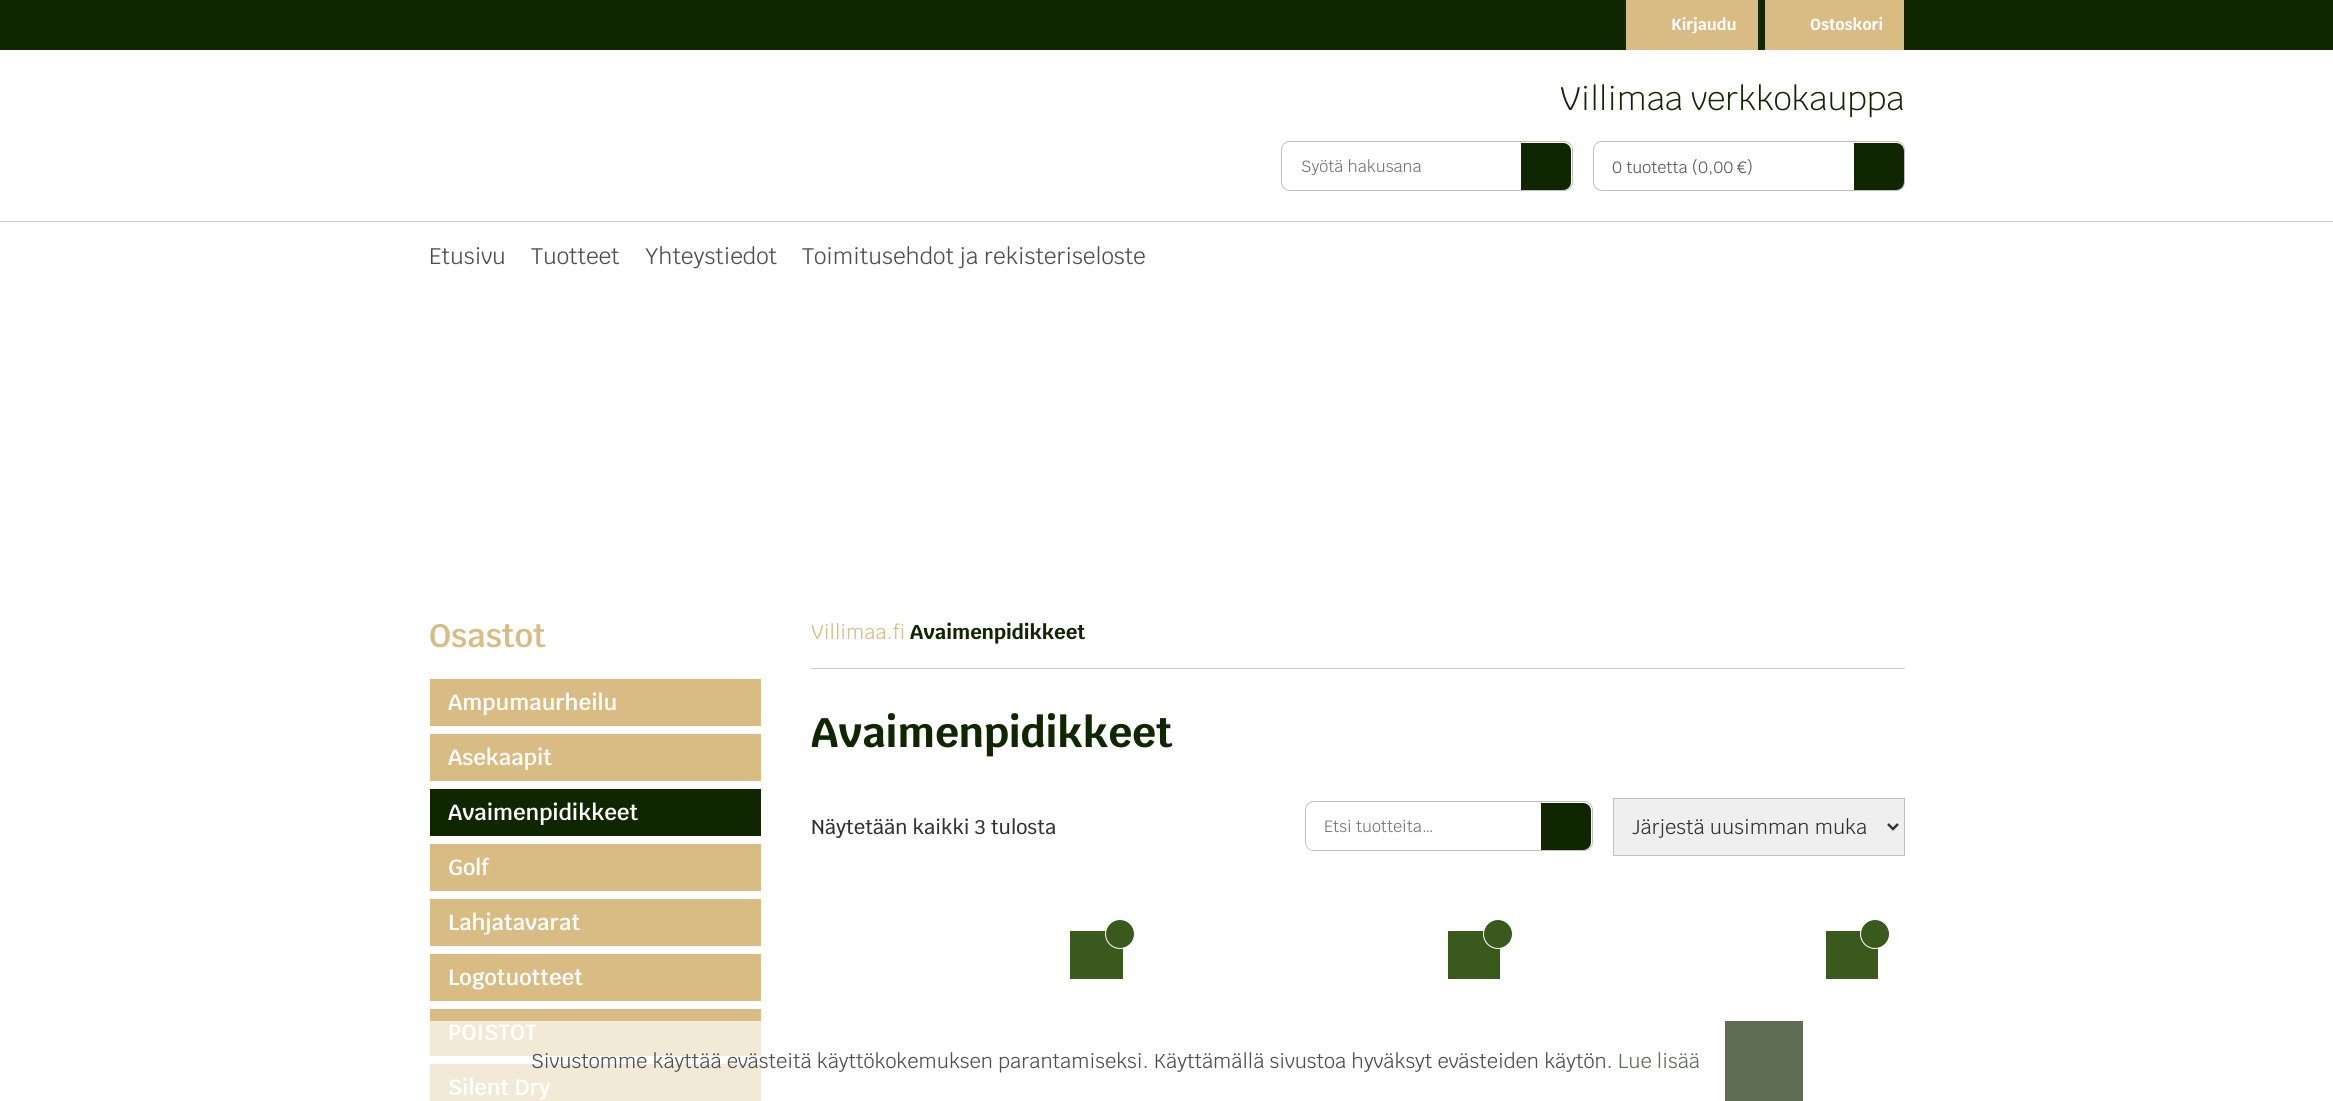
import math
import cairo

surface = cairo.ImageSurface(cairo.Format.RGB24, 2333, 1101)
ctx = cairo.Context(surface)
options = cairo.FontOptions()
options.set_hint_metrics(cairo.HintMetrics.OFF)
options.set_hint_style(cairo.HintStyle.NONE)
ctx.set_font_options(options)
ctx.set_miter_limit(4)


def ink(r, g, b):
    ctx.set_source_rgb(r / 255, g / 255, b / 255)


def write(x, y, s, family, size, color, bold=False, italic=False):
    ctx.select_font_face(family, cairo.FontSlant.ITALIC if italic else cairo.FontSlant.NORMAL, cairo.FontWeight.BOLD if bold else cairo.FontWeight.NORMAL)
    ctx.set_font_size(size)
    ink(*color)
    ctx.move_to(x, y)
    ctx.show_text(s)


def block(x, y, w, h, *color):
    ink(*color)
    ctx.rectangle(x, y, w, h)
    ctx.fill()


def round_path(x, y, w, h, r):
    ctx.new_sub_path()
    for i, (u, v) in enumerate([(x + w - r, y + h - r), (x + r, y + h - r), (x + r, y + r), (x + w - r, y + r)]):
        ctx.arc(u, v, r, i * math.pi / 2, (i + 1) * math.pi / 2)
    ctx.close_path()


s1 = dict(family="Krub", size=16, color=(255, 255, 255), bold=True)
s2 = dict(family="Krub Light", size=32.5, color=(16, 38, 1))
s3 = dict(family="Krub", size=16.25, color=(117, 117, 117))
s4 = dict(family="Krub", size=16.25, color=(88, 88, 88))
s5 = dict(family="Krub", size=22.5, color=(78, 78, 78))
s6 = dict(family="Krub SemiBold", size=32.5, color=(217, 187, 132))
s7 = dict(family="Krub SemiBold", size=22, color=(255, 255, 255))
s8 = dict(family="Krub", size=20, color=(217, 187, 132))
s9 = dict(family="Krub", size=20, color=(16, 38, 1), bold=True)
s10 = dict(family="Krub", size=41.25, color=(16, 38, 1), bold=True)
s11 = dict(family="Krub Medium", size=20, color=(51, 51, 51))
s12 = dict(family="Krub", size=20, color=(51, 51, 51))
s13 = dict(family="Krub", size=20, color=(78, 78, 78))
s14 = dict(family="Krub", size=20, color=(94, 109, 84))

ink(255, 255, 255)
ctx.paint()
block(0, 0, 2333, 50, 16, 38, 1)
block(1626, 0, 132, 50, 217, 187, 132)
write(1671, 30, "Kirjaudu", **s1)
block(1765, 0, 139, 50, 217, 187, 132)
write(1810, 30, "Ostoskori", **s1)
write(1560, 110, "Villimaa verkkokauppa", **s2)
round_path(1281.5, 141.5, 291, 49, 8.5)
ink(191, 191, 191)
ctx.set_line_width(1)
ctx.stroke()
ink(255, 255, 255)
ctx.new_path()
ctx.move_to(1291, 143)
ctx.line_to(1521, 143)
ctx.line_to(1521, 190)
ctx.line_to(1291, 190)
ctx.curve_to(1286.5, 190, 1283, 186.5, 1283, 182)
ctx.line_to(1283, 151)
ctx.curve_to(1283, 146.5, 1286.5, 143, 1291, 143)
ctx.close_path()
ctx.fill()
write(1301, 172, "Syötä hakusana", **s3)
ink(16, 38, 1)
ctx.new_path()
ctx.move_to(1521, 143)
ctx.line_to(1563, 143)
ctx.curve_to(1567.5, 143, 1571, 146.5, 1571, 151)
ctx.line_to(1571, 182)
ctx.curve_to(1571, 186.5, 1567.5, 190, 1563, 190)
ctx.line_to(1521, 190)
ctx.close_path()
ctx.fill()
round_path(1593.5, 141.5, 311, 49, 8.5)
ink(190, 190, 190)
ctx.stroke()
write(1612, 173, "0 tuotetta (0,00 €)", **s4)
ink(16, 38, 1)
ctx.new_path()
ctx.move_to(1854, 143)
ctx.line_to(1896, 143)
ctx.curve_to(1900.5, 143, 1904, 146.5, 1904, 151)
ctx.line_to(1904, 182)
ctx.curve_to(1904, 186.5, 1900.5, 190, 1896, 190)
ctx.line_to(1854, 190)
ctx.close_path()
ctx.fill()
block(0, 221, 2333, 1, 203, 203, 203)
write(429, 264, "Etusivu", **s5)
write(531, 264, "Tuotteet", **s5)
write(645, 264, "Yhteystiedot", **s5)
write(802, 264, "Toimitusehdot ja rekisteriseloste", **s5)
write(429, 647, "Osastot", **s6)
block(430, 679, 331, 47, 217, 187, 132)
write(448, 710, "Ampumaurheilu", **s7)
block(430, 734, 331, 47, 217, 187, 132)
write(448, 765, "Asekaapit", **s7)
block(430, 789, 331, 47, 16, 38, 1)
write(448, 820, "Avaimenpidikkeet", **s7)
block(430, 844, 331, 47, 217, 187, 132)
write(448, 875, "Golf", **s7)
block(430, 899, 331, 47, 217, 187, 132)
write(448, 930, "Lahjatavarat", **s7)
block(430, 954, 331, 47, 217, 187, 132)
write(448, 985, "Logotuotteet", **s7)
block(430, 1009, 331, 12, 217, 187, 132)
block(430, 1021, 331, 35, 242, 233, 214)
write(448, 1040, "POISTOT", **s7)
block(430, 1064, 331, 37, 242, 233, 214)
write(448, 1095, "Silent Dry", **s7)
block(811, 668, 1094, 1, 203, 203, 203)
write(811, 639, "Villimaa.fi", **s8)
write(910, 639, "Avaimenpidikkeet", **s9)
write(811, 747, "Avaimenpidikkeet", **s10)
write(811, 834, "Näytetään kaikki 3 tulosta", **s11)
round_path(1305.5, 801.5, 287, 49, 8.5)
ink(191, 191, 191)
ctx.stroke()
ink(255, 255, 255)
round_path(1306, 803, 285, 47, 8)
ctx.fill()
write(1324, 832, "Etsi tuotteita…", **s3)
ink(16, 38, 1)
ctx.new_path()
ctx.move_to(1541, 803)
ctx.line_to(1583, 803)
ctx.curve_to(1587.5, 803, 1591, 806.5, 1591, 811)
ctx.line_to(1591, 842)
ctx.curve_to(1591, 846.5, 1587.5, 850, 1583, 850)
ctx.line_to(1541, 850)
ctx.close_path()
ctx.fill()
ink(239, 239, 239)
ctx.rectangle(1613.5, 798.5, 291, 57)
ctx.fill_preserve()
ink(191, 191, 191)
ctx.stroke()
ctx.new_path()
ctx.move_to(1888, 824)
ctx.line_to(1893, 829)
ctx.line_to(1898, 824)
ink(51, 51, 51)
ctx.set_line_width(2.5)
ctx.stroke()
write(1632, 834, "Järjestä uusimman muka", **s12)
block(1070, 931, 53, 48, 58, 89, 28)
ctx.new_path()
ctx.arc(1120, 934, 14.5, 0, 2 * math.pi)
ctx.fill_preserve()
ink(255, 255, 255)
ctx.set_line_width(1)
ctx.stroke()
block(1448, 931, 52, 48, 58, 89, 28)
ctx.arc(1498, 934, 14.5, 0, 2 * math.pi)
ctx.fill_preserve()
ink(255, 255, 255)
ctx.stroke()
block(1826, 931, 52, 48, 58, 89, 28)
ctx.arc(1875, 934, 14.5, 0, 2 * math.pi)
ctx.fill_preserve()
ink(255, 255, 255)
ctx.stroke()
write(531, 1068, "Sivustomme käyttää evästeitä käyttökokemuksen parantamiseksi. Käyttämällä sivustoa hyväksyt evästeiden käytön.", **s13)
write(1618, 1068, "Lue lisää", **s14)
block(1725, 1021, 78, 80, 94, 109, 84)
surface.write_to_png("screenshot.png")
